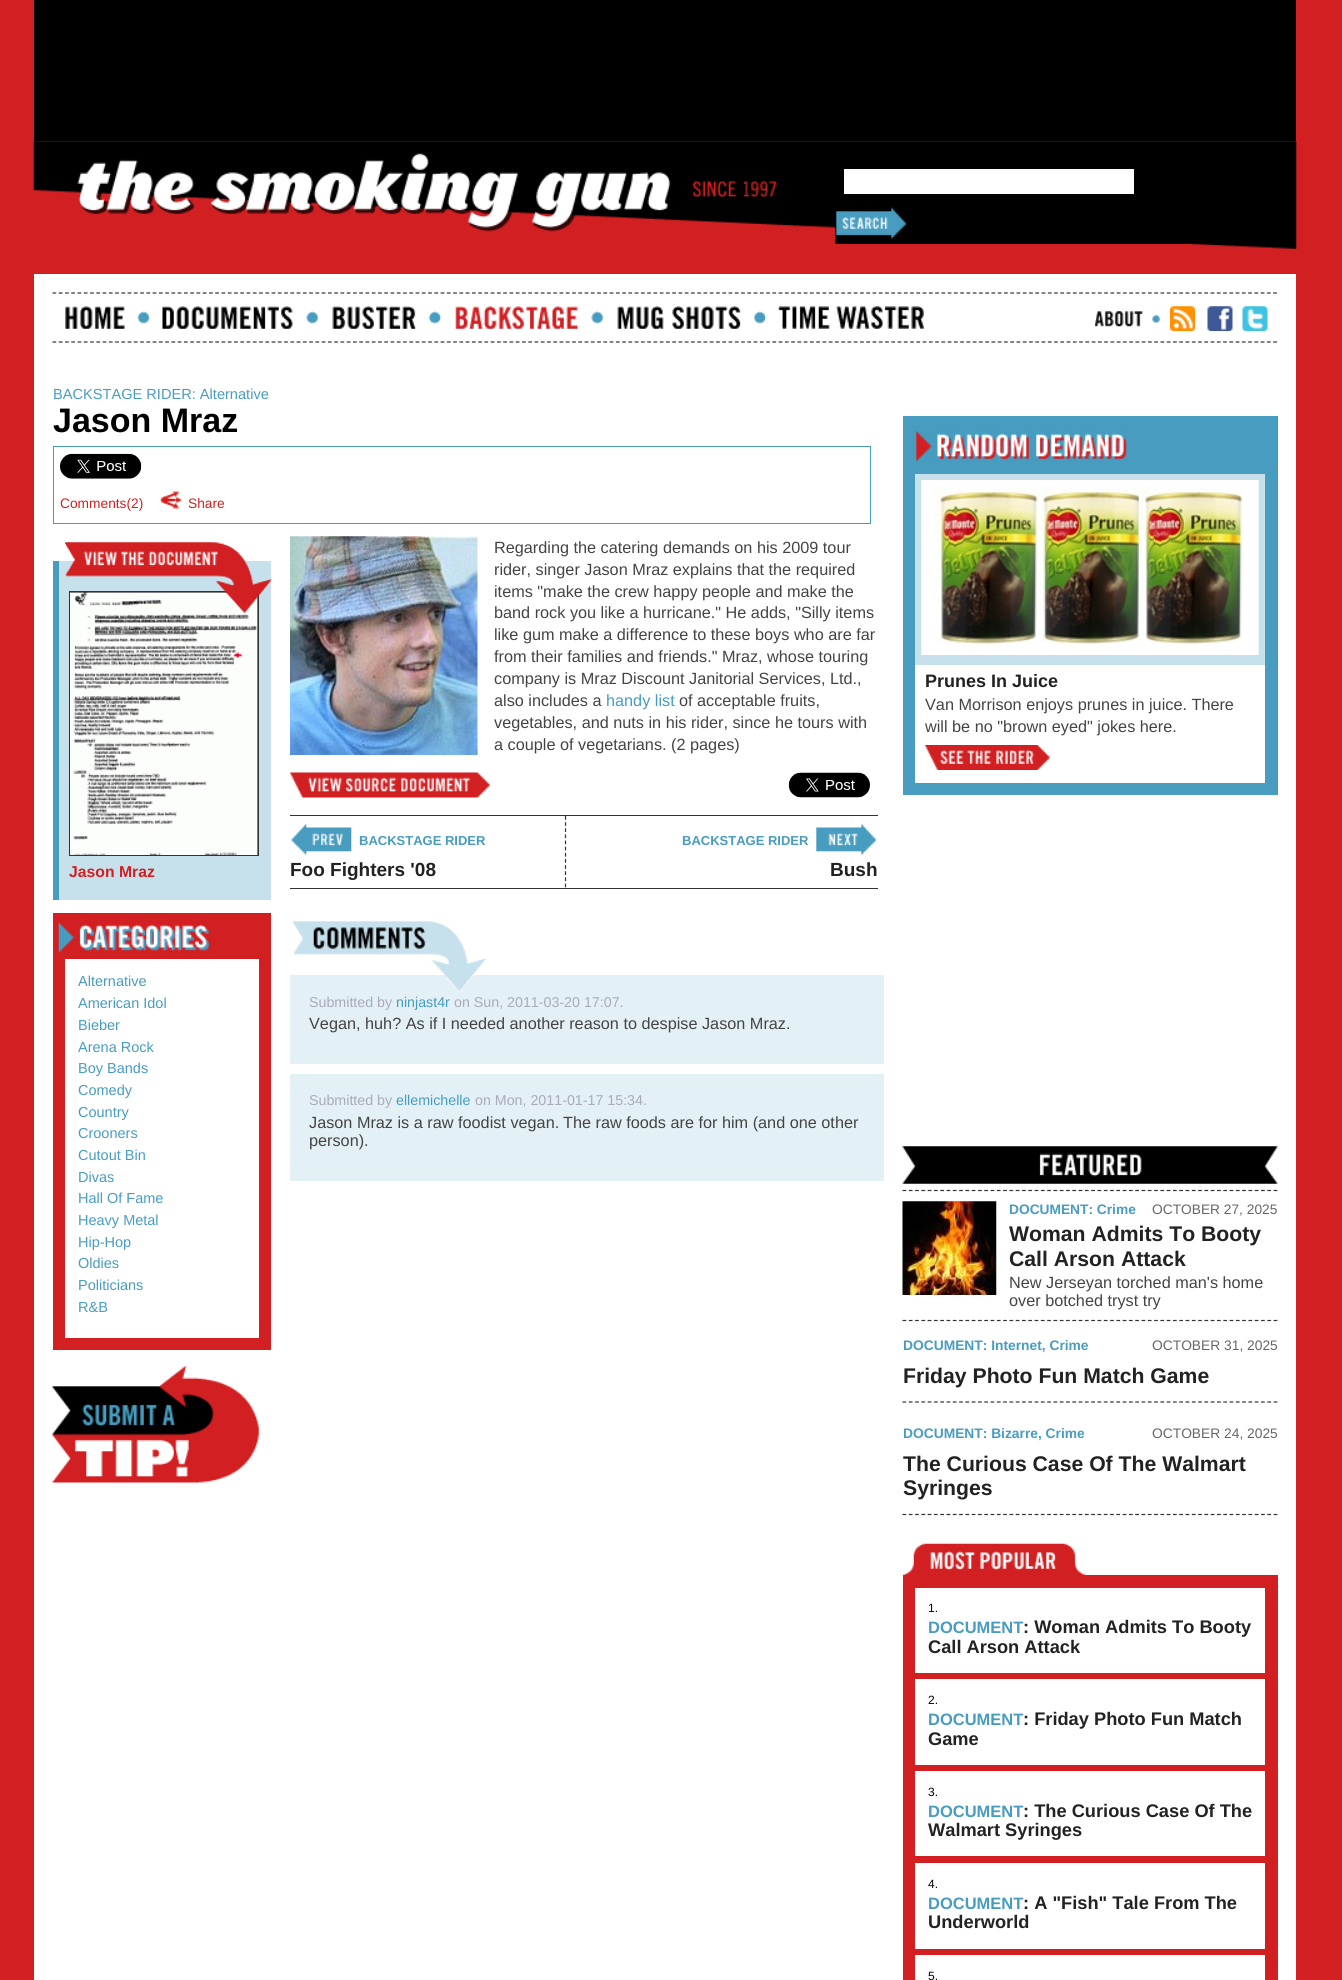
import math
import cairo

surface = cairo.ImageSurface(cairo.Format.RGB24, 1342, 1980)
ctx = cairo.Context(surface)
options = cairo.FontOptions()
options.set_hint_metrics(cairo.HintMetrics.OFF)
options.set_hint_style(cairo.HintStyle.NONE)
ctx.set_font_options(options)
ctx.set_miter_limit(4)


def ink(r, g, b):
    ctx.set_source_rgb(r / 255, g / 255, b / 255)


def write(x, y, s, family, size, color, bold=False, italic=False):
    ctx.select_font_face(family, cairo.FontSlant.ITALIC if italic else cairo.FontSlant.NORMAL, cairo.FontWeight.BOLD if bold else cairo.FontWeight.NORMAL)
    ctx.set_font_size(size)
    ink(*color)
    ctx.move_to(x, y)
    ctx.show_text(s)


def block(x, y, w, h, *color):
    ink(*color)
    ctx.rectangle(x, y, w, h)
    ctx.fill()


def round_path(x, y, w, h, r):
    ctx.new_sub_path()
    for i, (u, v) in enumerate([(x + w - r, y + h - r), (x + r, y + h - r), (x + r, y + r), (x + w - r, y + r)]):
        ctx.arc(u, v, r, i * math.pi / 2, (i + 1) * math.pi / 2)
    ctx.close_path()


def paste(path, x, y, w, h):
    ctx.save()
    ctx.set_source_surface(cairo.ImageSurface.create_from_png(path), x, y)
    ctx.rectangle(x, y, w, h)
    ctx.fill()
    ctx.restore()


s1 = dict(family="Liberation Sans", size=14.6, color=(71, 156, 192))
s2 = dict(family="Liberation Sans", size=34, color=(0, 0, 0), bold=True)
s3 = dict(family="Liberation Sans", size=13.75, color=(209, 31, 34))
s4 = dict(family="Liberation Sans", size=15.75, color=(209, 31, 34), bold=True)
s5 = dict(family="Liberation Sans", size=14.5, color=(71, 156, 192))
s6 = dict(family="Liberation Sans", size=16.25, color=(68, 68, 68))
s7 = dict(family="Liberation Sans", size=16.25, color=(71, 156, 192))
s8 = dict(family="Liberation Sans", size=13, color=(71, 156, 192), bold=True)
s9 = dict(family="Liberation Sans", size=19, color=(34, 34, 34), bold=True)
s10 = dict(family="Liberation Sans", size=14.25, color=(170, 170, 187))
s11 = dict(family="Liberation Sans", size=14.25, color=(71, 156, 192))
s12 = dict(family="Liberation Sans", size=18, color=(34, 34, 34), bold=True)
s13 = dict(family="Liberation Sans", size=13.75, color=(71, 156, 192), bold=True)
s14 = dict(family="Liberation Sans", size=13.75, color=(102, 102, 102))
s15 = dict(family="Liberation Sans", size=21.2, color=(34, 34, 34), bold=True)
s16 = dict(family="Liberation Sans", size=13.8, color=(71, 156, 192), bold=True)
s17 = dict(family="Liberation Sans", size=13.8, color=(102, 102, 102))
s18 = dict(family="Liberation Sans", size=12, color=(0, 0, 0))
s19 = dict(family="Liberation Sans", size=16.5, color=(71, 156, 192), bold=True)
s20 = dict(family="Liberation Sans", size=18.25, color=(34, 34, 34), bold=True)

ink(209, 31, 34)
ctx.paint()
block(34, 0, 1262, 141, 0, 0, 0)
paste("pic1.png", 33, 141, 1264, 108)
paste("pic2.png", 77, 153, 700, 79)
block(835, 226, 378, 18, 0, 0, 0)
ink(255, 255, 255)
round_path(839.5, 164.5, 299, 34, 1.5)
ctx.fill_preserve()
ink(0, 0, 0)
ctx.set_line_width(9)
ctx.stroke()
paste("pic3.png", 836, 207, 71, 32)
block(34, 274, 1262, 1706, 255, 255, 255)
ctx.new_path()
ctx.move_to(52.5, 293)
ctx.line_to(1277.5, 293)
ink(51, 51, 51)
ctx.set_line_width(1.2)
ctx.set_dash([3.75, 2.51])
ctx.stroke()
ctx.new_path()
ctx.move_to(52.5, 342)
ctx.line_to(1277.5, 342)
ctx.stroke()
paste("pic4.png", 137, 311, 13, 13)
paste("pic5.png", 65, 306, 60, 23)
paste("pic6.png", 306, 311, 13, 13)
paste("pic7.png", 162, 306, 131, 23)
paste("pic8.png", 428, 311, 14, 13)
paste("pic9.png", 332, 306, 84, 23)
paste("pic6.png", 591, 311, 13, 13)
paste("pic10.png", 455, 306, 123, 23)
paste("pic11.png", 753, 311, 14, 13)
paste("pic12.png", 617, 306, 124, 23)
paste("pic13.png", 778, 306, 146, 23)
paste("pic14.png", 1152, 315, 8, 8)
paste("pic15.png", 1095, 311, 48, 16)
paste("pic16.png", 1170, 306, 25, 26)
paste("pic17.png", 1207, 306, 26, 26)
paste("pic18.png", 1242, 306, 26, 26)
write(53, 399, "BACKSTAGE RIDER: Alternative", **s1)
write(53, 432, "Jason Mraz", **s2)
ctx.rectangle(53.5, 446.5, 817, 77)
ink(71, 156, 192)
ctx.set_line_width(1)
ctx.set_dash([])
ctx.stroke()
paste("pic19.png", 60, 453, 82, 26)
write(60, 508, "Comments(2)", **s3)
paste("pic20.png", 160, 491, 23, 18)
write(188, 508, "Share", **s3)
block(59, 561, 212, 339, 199, 225, 236)
block(53, 561, 6, 339, 71, 156, 192)
ink(0, 0, 0)
ctx.rectangle(69.5, 591.5, 189, 264)
ctx.fill_preserve()
ink(51, 51, 51)
ctx.stroke()
paste("pic23.png", 70, 592, 188, 263)
paste("pic21.png", 65, 542, 207, 71)
paste("pic22.png", 65, 542, 207, 71)
write(69, 877, "Jason Mraz", **s4)
block(53, 913, 218, 437, 209, 31, 34)
paste("pic24.png", 58, 922, 151, 31)
block(65, 959, 194, 379, 255, 255, 255)
write(78, 986, "Alternative", **s5)
write(78, 1008, "American Idol", **s5)
write(78, 1030, "Bieber", **s5)
write(78, 1052, "Arena Rock", **s5)
write(78, 1073, "Boy Bands", **s5)
write(78, 1095, "Comedy", **s5)
write(78, 1117, "Country", **s5)
write(78, 1138, "Crooners", **s5)
write(78, 1160, "Cutout Bin", **s5)
write(78, 1182, "Divas", **s5)
write(78, 1203, "Hall Of Fame", **s5)
write(78, 1225, "Heavy Metal", **s5)
write(78, 1247, "Hip-Hop", **s5)
write(78, 1268, "Oldies", **s5)
write(78, 1290, "Politicians", **s5)
write(78, 1312, "R&B", **s5)
paste("pic25.png", 52, 1366, 207, 117)
paste("pic26.png", 290, 536, 188, 219)
write(494, 553, "Regarding the catering demands on his 2009 tour", **s6)
write(494, 575, "rider, singer Jason Mraz explains that the required", **s6)
write(494, 597, "items \"make the crew happy people and make the", **s6)
write(494, 618, "band rock you like a hurricane.\" He adds, \"Silly items", **s6)
write(494, 640, "like gum make a difference to these boys who are far", **s6)
write(494, 662, "from their families and friends.\" Mraz, whose touring", **s6)
write(494, 684, "company is Mraz Discount Janitorial Services, Ltd.,", **s6)
write(494, 706, "also includes a", **s6)
write(606, 706, "handy list", **s7)
write(679, 706, "of acceptable fruits,", **s6)
write(494, 728, "vegetables, and nuts in his rider, since he tours with", **s6)
write(494, 750, "a couple of vegetarians. (2 pages)", **s6)
paste("pic27.png", 290, 772, 200, 26)
paste("pic28.png", 788, 772, 82, 26)
block(290, 815, 588, 1, 51, 51, 51)
block(290, 888, 588, 1, 51, 51, 51)
ctx.new_path()
ctx.move_to(565.5, 816)
ctx.line_to(565.5, 887.5)
ctx.set_line_width(1.2)
ctx.set_dash([3.75, 2.39])
ctx.stroke()
paste("pic29.png", 291, 823, 61, 33)
write(359, 845, "BACKSTAGE RIDER", **s8)
write(290, 876, "Foo Fighters '08", **s9)
write(682, 845, "BACKSTAGE RIDER", **s8)
paste("pic30.png", 816, 823, 61, 33)
write(830, 876, "Bush", **s9)
block(290, 975, 594, 89, 227, 240, 245)
paste("pic31.png", 292, 921, 195, 71)
write(309, 1007, "Submitted by", **s10)
write(396, 1007, "ninjast4r", **s11)
write(454, 1007, "on Sun, 2011-03-20 17:07.", **s10)
write(309, 1029, "Vegan, huh? As if I needed another reason to despise Jason Mraz.", **s6)
block(290, 1074, 594, 107, 227, 240, 245)
write(309, 1105, "Submitted by", **s10)
write(396, 1105, "ellemichelle", **s11)
write(475, 1105, "on Mon, 2011-01-17 15:34.", **s10)
write(309, 1128, "Jason Mraz is a raw foodist vegan.", **s6)
write(563, 1128, "The raw foods are for him (and one other", **s6)
write(309, 1146, "person).", **s6)
block(903, 416, 375, 379, 71, 156, 192)
paste("pic32.png", 916, 430, 211, 32)
block(915, 665, 350, 118, 255, 255, 255)
block(915, 474, 350, 191, 199, 225, 236)
paste("pic33.png", 921, 480, 338, 175)
write(925, 687, "Prunes In Juice", **s12)
write(925, 710, "Van Morrison enjoys prunes in juice. There", **s6)
write(925, 732, "will be no \"brown eyed\" jokes here.", **s6)
paste("pic34.png", 925, 745, 125, 25)
paste("pic35.png", 902, 1146, 376, 38)
ctx.new_path()
ctx.move_to(902.5, 1190.5)
ctx.line_to(1277.5, 1190.5)
ink(51, 51, 51)
ctx.set_dash([3.75, 2.54])
ctx.stroke()
ctx.new_path()
ctx.move_to(902.5, 1320.5)
ctx.line_to(1277.5, 1320.5)
ctx.stroke()
paste("pic36.png", 902, 1201, 95, 94)
write(1009, 1214, "DOCUMENT: Crime", **s13)
write(1152, 1214, "OCTOBER 27, 2025", **s14)
write(1009, 1241, "Woman Admits To Booty", **s15)
write(1009, 1266, "Call Arson Attack", **s15)
write(1009, 1288, "New Jerseyan torched man's home", **s6)
write(1009, 1306, "over botched tryst try", **s6)
ctx.new_path()
ctx.move_to(902.5, 1402)
ctx.line_to(1277.5, 1402)
ink(51, 51, 51)
ctx.stroke()
write(903, 1350, "DOCUMENT: Internet, Crime", **s16)
write(1152, 1350, "OCTOBER 31, 2025", **s17)
write(903, 1383, "Friday Photo Fun Match Game", **s15)
ctx.new_path()
ctx.move_to(902.5, 1514.5)
ctx.line_to(1277.5, 1514.5)
ink(51, 51, 51)
ctx.stroke()
write(903, 1438, "DOCUMENT: Bizarre, Crime", **s16)
write(1152, 1438, "OCTOBER 24, 2025", **s17)
write(903, 1471, "The Curious Case Of The Walmart", **s15)
write(903, 1495, "Syringes", **s15)
paste("pic37.png", 902, 1543, 185, 32)
block(903, 1575, 375, 405, 209, 31, 34)
block(915, 1588, 350, 85, 255, 255, 255)
write(928, 1612, "1.", **s18)
write(928, 1633, "DOCUMENT", **s19)
write(1023, 1633, ": Woman Admits To Booty", **s20)
write(928, 1653, "Call Arson Attack", **s20)
block(915, 1679, 350, 86, 255, 255, 255)
write(928, 1704, "2.", **s18)
write(928, 1725, "DOCUMENT", **s19)
write(1023, 1725, ": Friday Photo Fun Match", **s20)
write(928, 1745, "Game", **s20)
block(915, 1771, 350, 85, 255, 255, 255)
write(928, 1796, "3.", **s18)
write(928, 1817, "DOCUMENT", **s19)
write(1023, 1817, ": The Curious Case Of The", **s20)
write(928, 1836, "Walmart Syringes", **s20)
block(915, 1863, 350, 86, 255, 255, 255)
write(928, 1888, "4.", **s18)
write(928, 1909, "DOCUMENT", **s19)
write(1023, 1909, ": A \"Fish\" Tale From The", **s20)
write(928, 1928, "Underworld", **s20)
block(915, 1955, 350, 25, 255, 255, 255)
write(928, 1980, "5.", **s18)
surface.write_to_png("screenshot.png")
